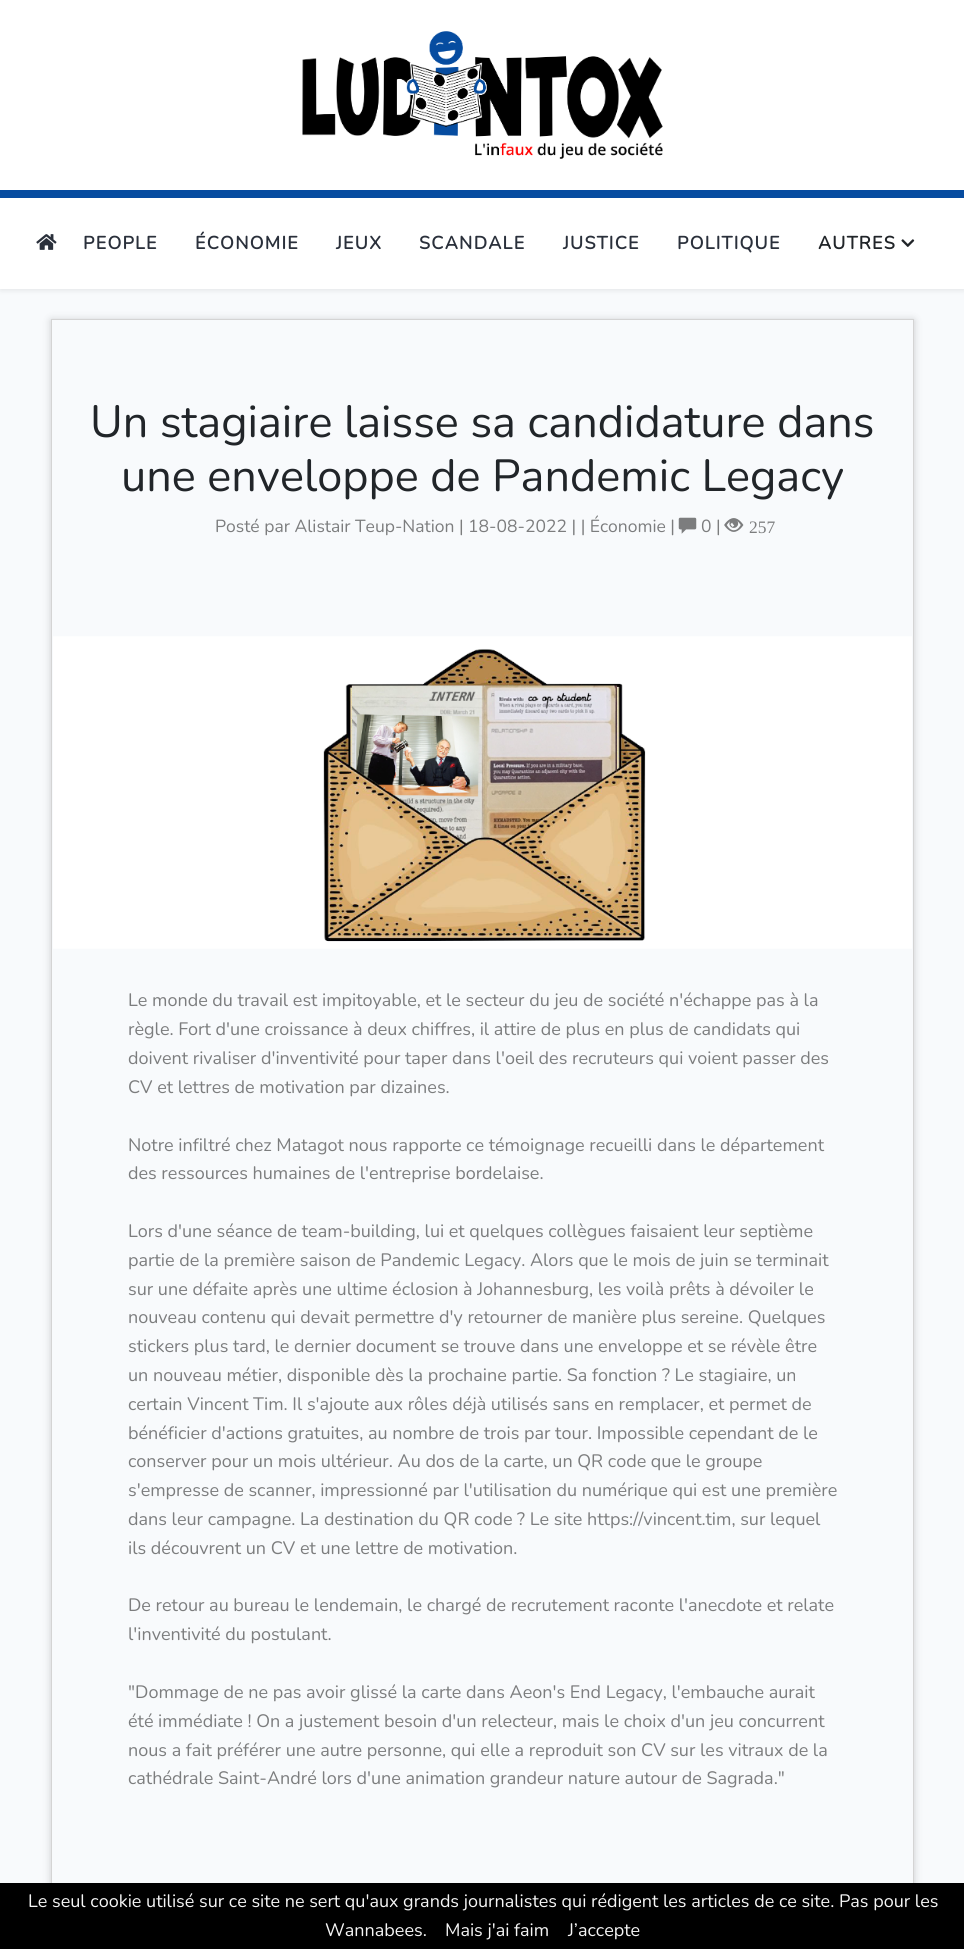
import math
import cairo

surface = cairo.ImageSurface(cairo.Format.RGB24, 964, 1949)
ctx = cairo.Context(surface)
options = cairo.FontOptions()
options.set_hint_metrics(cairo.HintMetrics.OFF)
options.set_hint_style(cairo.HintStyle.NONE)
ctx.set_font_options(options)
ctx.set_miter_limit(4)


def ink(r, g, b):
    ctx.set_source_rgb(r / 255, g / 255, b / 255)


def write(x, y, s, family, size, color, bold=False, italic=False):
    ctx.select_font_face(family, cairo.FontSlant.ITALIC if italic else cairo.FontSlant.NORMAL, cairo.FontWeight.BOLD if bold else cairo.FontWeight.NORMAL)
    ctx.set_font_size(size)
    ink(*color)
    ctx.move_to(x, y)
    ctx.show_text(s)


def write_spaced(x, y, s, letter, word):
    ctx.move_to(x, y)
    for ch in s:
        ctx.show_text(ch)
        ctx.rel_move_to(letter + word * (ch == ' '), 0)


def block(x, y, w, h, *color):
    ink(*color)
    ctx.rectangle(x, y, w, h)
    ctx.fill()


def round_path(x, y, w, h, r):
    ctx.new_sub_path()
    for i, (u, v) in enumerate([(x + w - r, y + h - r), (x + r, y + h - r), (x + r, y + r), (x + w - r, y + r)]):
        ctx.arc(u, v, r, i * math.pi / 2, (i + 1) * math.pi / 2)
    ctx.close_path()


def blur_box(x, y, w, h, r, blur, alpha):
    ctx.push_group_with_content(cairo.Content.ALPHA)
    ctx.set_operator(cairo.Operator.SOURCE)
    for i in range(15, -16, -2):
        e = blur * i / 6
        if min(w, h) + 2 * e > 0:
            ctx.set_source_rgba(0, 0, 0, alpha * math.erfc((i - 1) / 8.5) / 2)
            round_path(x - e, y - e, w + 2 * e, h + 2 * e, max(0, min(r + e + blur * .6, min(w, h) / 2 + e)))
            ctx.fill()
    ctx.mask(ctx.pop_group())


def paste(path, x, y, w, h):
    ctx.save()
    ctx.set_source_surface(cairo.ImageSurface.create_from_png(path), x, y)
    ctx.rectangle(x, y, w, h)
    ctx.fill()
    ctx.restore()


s1 = dict(family="Nunito ExtraLight", size=45, color=(33, 37, 41))
s2 = dict(family="Nunito ExtraLight", size=17.5, color=(124, 125, 126))
s3 = dict(family="Liberation Serif", size=17.5, color=(124, 125, 126))
s4 = dict(family="Nunito ExtraLight", size=18, color=(124, 125, 126))
s5 = dict(family="Nunito ExtraLight", size=18, color=(245, 245, 245))

ink(248, 250, 252)
ctx.paint()
ink(0, 0, 0)
blur_box(0, 3, 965, 288, 0, 2.5, 0.07)
block(0, 0, 964, 289, 255, 255, 255)
paste("pic1.png", 302, 31, 361, 128)
block(0, 190, 964, 8, 7, 76, 160)
paste("pic2.png", 36, 234, 21, 16)
ctx.select_font_face("Nunito", cairo.FontSlant.NORMAL, cairo.FontWeight.BOLD)
ctx.set_font_size(18)
ink(42, 48, 59)
write_spaced(83, 249, "PEOPLE", 1.25, 0)
write_spaced(195, 249, "ÉCONOMIE", 1.25, 0)
write_spaced(336, 249, "JEUX", 1.25, 0)
write_spaced(419, 249, "SCANDALE", 1.25, 0)
write_spaced(563, 249, "JUSTICE", 1.25, 0)
write_spaced(677, 249, "POLITIQUE", 1.25, 0)
ink(33, 37, 41)
write_spaced(818, 249, "AUTRES", 1.25, 0)
paste("pic3.png", 901, 239, 14, 8)
ctx.save()
ctx.set_fill_rule(cairo.FillRule.EVEN_ODD)
ctx.new_path()
ctx.move_to(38, 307)
ctx.line_to(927, 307)
ctx.line_to(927, 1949)
ctx.line_to(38, 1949)
ctx.close_path()
ctx.move_to(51, 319)
ctx.line_to(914, 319)
ctx.line_to(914, 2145)
ctx.line_to(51, 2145)
ctx.close_path()
ctx.clip()
ink(0, 0, 0)
blur_box(51, 320, 863, 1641, 0, 4, 0.18)
ctx.restore()
ctx.rectangle(51.5, 319.5, 862, 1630)
ink(212, 212, 212)
ctx.set_line_width(1)
ctx.stroke()
write(90, 437, "Un stagiaire laisse sa candidature dans", **s1)
write(121, 491, "une enveloppe de Pandemic Legacy", **s1)
write(215, 532, "Posté par Alistair Teup-Nation | 18-08-2022 | | Économie |", **s2)
paste("pic4.png", 678, 517, 19, 17)
write(701, 532, "0 |", **s2)
paste("pic5.png", 724, 518, 20, 14)
write(749, 533, "257", **s3)
paste("pic6.png", 53, 636, 859, 313)
write(128, 1006, "Le monde du travail est impitoyable, et le secteur du jeu de société n'échappe pas à la", **s4)
write(128, 1035, "règle. Fort d'une croissance à deux chiffres, il attire de plus en plus de candidats qui", **s4)
write(128, 1064, "doivent rivaliser d'inventivité pour taper dans l'oeil des recruteurs qui voient passer des", **s4)
write(128, 1093, "CV et lettres de motivation par dizaines.", **s4)
write(128, 1151, "Notre infiltré chez Matagot nous rapporte ce témoignage recueilli dans le département", **s4)
write(128, 1179, "des ressources humaines de l'entreprise bordelaise.", **s4)
write(128, 1237, "Lors d'une séance de team-building, lui et quelques collègues faisaient leur septième", **s4)
write(128, 1266, "partie de la première saison de Pandemic Legacy. Alors que le mois de juin se terminait", **s4)
write(128, 1295, "sur une défaite après une ultime éclosion à Johannesburg, les voilà prêts à dévoiler le", **s4)
write(128, 1323, "nouveau contenu qui devait permettre d'y retourner de manière plus sereine. Quelques", **s4)
write(128, 1352, "stickers plus tard, le dernier document se trouve dans une enveloppe et se révèle être", **s4)
write(128, 1381, "un nouveau métier, disponible dès la prochaine partie. Sa fonction ? Le stagiaire, un", **s4)
write(128, 1410, "certain Vincent Tim. Il s'ajoute aux rôles déjà utilisés sans en remplacer, et permet de", **s4)
write(128, 1439, "bénéficier d'actions gratuites, au nombre de trois par tour. Impossible cependant de le", **s4)
write(128, 1467, "conserver pour un mois ultérieur. Au dos de la carte, un QR code que le groupe", **s4)
write(128, 1496, "s'empresse de scanner, impressionné par l'utilisation du numérique qui est une première", **s4)
write(128, 1525, "dans leur campagne. La destination du QR code ? Le site https://vincent.tim, sur lequel", **s4)
write(128, 1554, "ils découvrent un CV et une lettre de motivation.", **s4)
write(128, 1611, "De retour au bureau le lendemain, le chargé de recrutement raconte l'anecdote et relate", **s4)
write(128, 1640, "l'inventivité du postulant.", **s4)
write(128, 1698, "\"Dommage de ne pas avoir glissé la carte dans Aeon's End Legacy, l'embauche aurait", **s4)
write(128, 1727, "été immédiate ! On a justement besoin d'un relecteur, mais le choix d'un jeu concurrent", **s4)
write(128, 1756, "nous a fait préférer une autre personne, qui elle a reproduit son CV sur les vitraux de la", **s4)
write(128, 1784, "cathédrale Saint-André lors d'une animation grandeur nature autour de Sagrada.\"", **s4)
block(0, 1883, 964, 66, 0, 0, 0)
write(28, 1907, "Le seul cookie utilisé sur ce site ne sert qu'aux grands journalistes qui rédigent les articles de ce site. Pas pour les", **s5)
write(325, 1936, "Wannabees.", **s5)
write(445, 1936, "Mais j′ai faim", **s5)
write(568, 1936, "J’accepte", **s5)
surface.write_to_png("screenshot.png")
